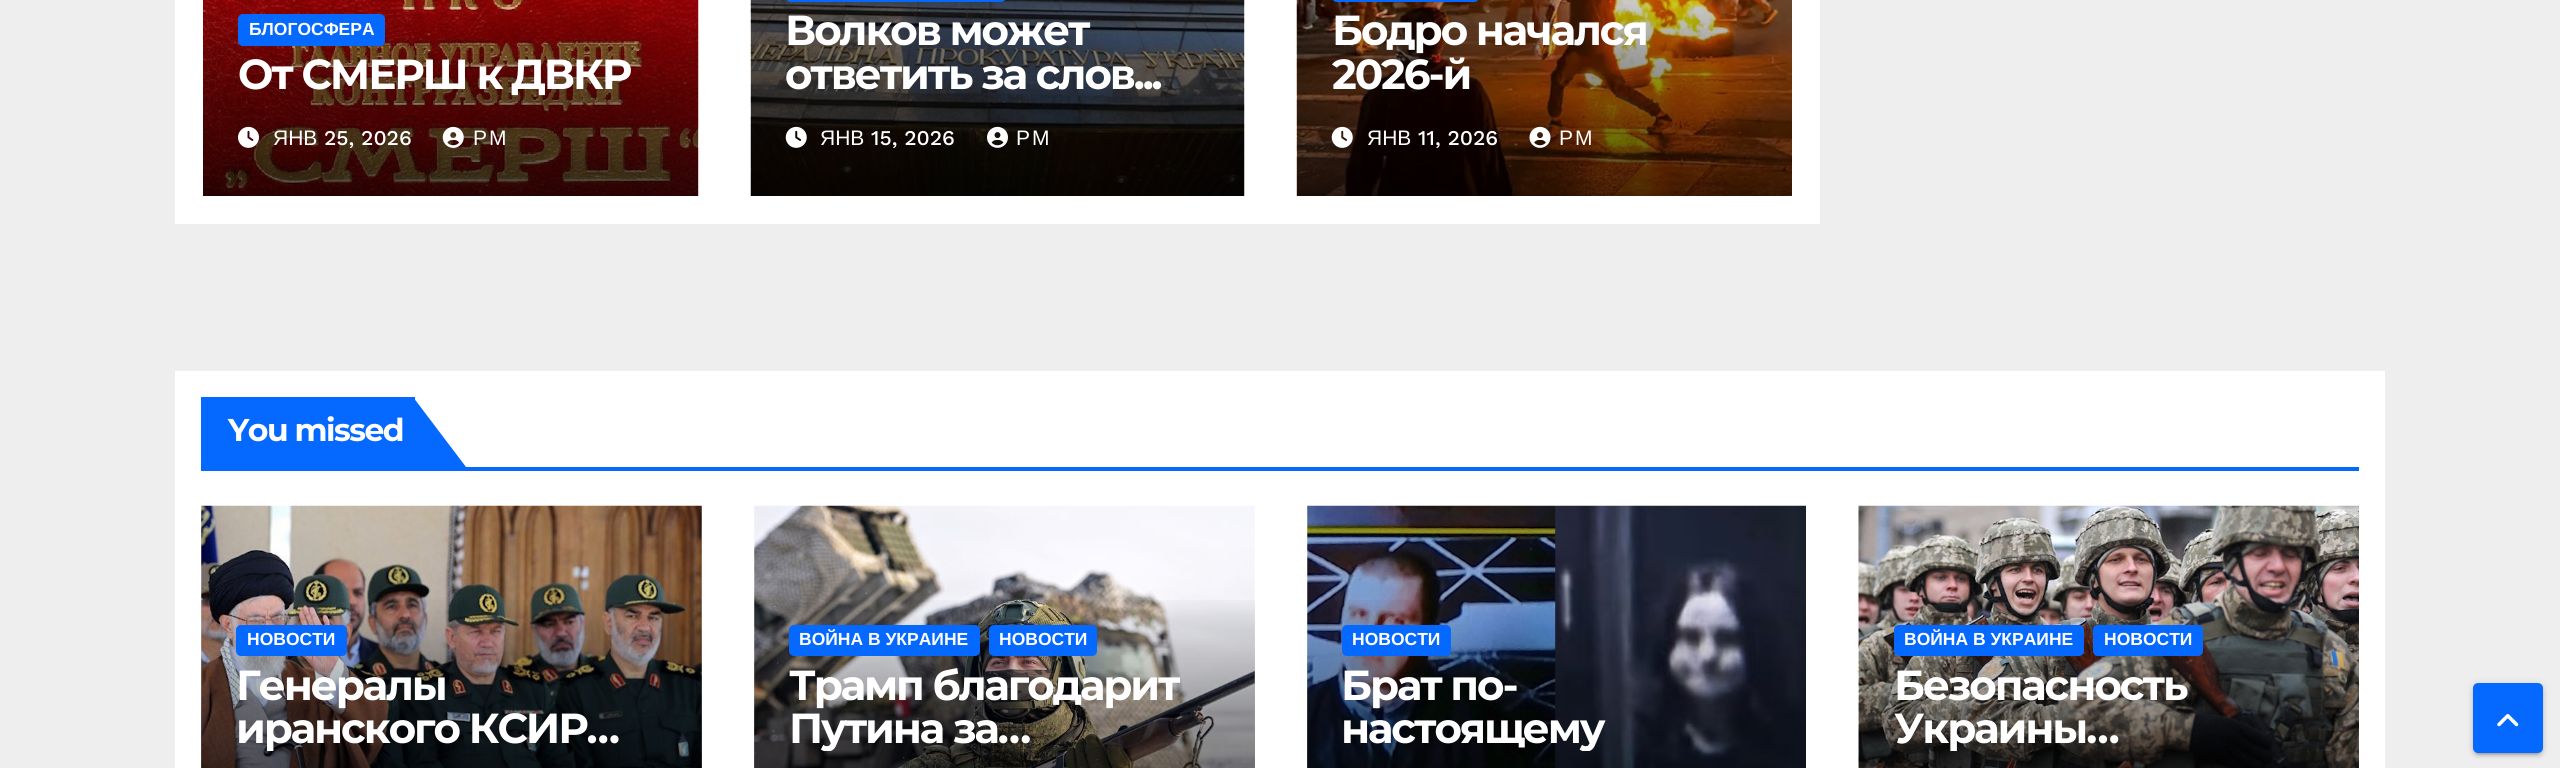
import math
import cairo

surface = cairo.ImageSurface(cairo.Format.RGB24, 2560, 768)
ctx = cairo.Context(surface)
options = cairo.FontOptions()
options.set_hint_metrics(cairo.HintMetrics.OFF)
options.set_hint_style(cairo.HintStyle.NONE)
ctx.set_font_options(options)
ctx.set_miter_limit(4)


def ink(r, g, b):
    ctx.set_source_rgb(r / 255, g / 255, b / 255)


def write(x, y, s, family, size, color, bold=False, italic=False):
    ctx.select_font_face(family, cairo.FontSlant.ITALIC if italic else cairo.FontSlant.NORMAL, cairo.FontWeight.BOLD if bold else cairo.FontWeight.NORMAL)
    ctx.set_font_size(size)
    ink(*color)
    ctx.move_to(x, y)
    ctx.show_text(s)


def write_spaced(x, y, s, letter, word):
    ctx.move_to(x, y)
    for ch in s:
        ctx.show_text(ch)
        ctx.rel_move_to(letter + word * (ch == ' '), 0)


def block(x, y, w, h, *color):
    ink(*color)
    ctx.rectangle(x, y, w, h)
    ctx.fill()


def round_path(x, y, w, h, r):
    ctx.new_sub_path()
    for i, (u, v) in enumerate([(x + w - r, y + h - r), (x + r, y + h - r), (x + r, y + r), (x + w - r, y + r)]):
        ctx.arc(u, v, r, i * math.pi / 2, (i + 1) * math.pi / 2)
    ctx.close_path()


def blur_box(x, y, w, h, r, blur, alpha):
    ctx.push_group_with_content(cairo.Content.ALPHA)
    ctx.set_operator(cairo.Operator.SOURCE)
    for i in range(15, -16, -2):
        e = blur * i / 6
        if min(w, h) + 2 * e > 0:
            ctx.set_source_rgba(0, 0, 0, alpha * math.erfc((i - 1) / 8.5) / 2)
            round_path(x - e, y - e, w + 2 * e, h + 2 * e, max(0, min(r + e + blur * .6, min(w, h) / 2 + e)))
            ctx.fill()
    ctx.mask(ctx.pop_group())


def paste(path, x, y, w, h):
    ctx.save()
    ctx.set_source_surface(cairo.ImageSurface.create_from_png(path), x, y)
    ctx.rectangle(x, y, w, h)
    ctx.fill()
    ctx.restore()


s1 = dict(family="Liberation Sans", size=17.5, color=(255, 255, 255), bold=True)
s2 = dict(family="Liberation Sans", size=21, color=(255, 255, 255))
s3 = dict(family="Work Sans Medium", size=21, color=(255, 255, 255))

ink(238, 238, 238)
ctx.paint()
block(175, 0, 1645, 224, 255, 255, 255)
paste("pic1.png", 203, 0, 496, 196)
ink(6, 105, 255)
round_path(238, 14, 147, 32, 5)
ctx.fill()
write(249, 35, "БЛОГОСФЕРА", **s1)
ctx.select_font_face("Montserrat", cairo.FontSlant.NORMAL, cairo.FontWeight.BOLD)
ctx.set_font_size(42)
write_spaced(238, 89, "От СМЕРШ к ДВКР", -2.1, 0)
paste("pic2.png", 238, 126, 21, 22)
write(273, 145, "ЯНВ", **s2)
write(324, 145, "25, 2026", **s3)
paste("pic3.png", 442, 126, 22, 22)
ctx.select_font_face("Liberation Sans")
write_spaced(473, 145, "РМ", 2, 0)
paste("pic4.png", 750, 0, 495, 196)
ink(6, 105, 255)
round_path(786, -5, 220, 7, 5)
ctx.fill()
ctx.select_font_face("Montserrat", cairo.FontSlant.NORMAL, cairo.FontWeight.BOLD)
ctx.set_font_size(42)
ink(255, 255, 255)
write_spaced(785, 45, "Волков может", -2.1, 0)
write_spaced(785, 89, "ответить за слов...", -2.1, 0)
paste("pic5.png", 785, 126, 22, 22)
write(820, 145, "ЯНВ", **s2)
write(871, 145, "15, 2026", **s3)
paste("pic6.png", 987, 126, 21, 22)
ctx.select_font_face("Liberation Sans")
write_spaced(1016, 145, "РМ", 2, 0)
paste("pic7.png", 1296, 0, 496, 196)
ink(6, 105, 255)
round_path(1332, -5, 147, 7, 5)
ctx.fill()
ctx.select_font_face("Montserrat", cairo.FontSlant.NORMAL, cairo.FontWeight.BOLD)
ctx.set_font_size(42)
ink(255, 255, 255)
write_spaced(1332, 45, "Бодро начался", -2.1, 0)
write_spaced(1332, 89, "2026-й", -2.1, 0)
paste("pic8.png", 1331, 126, 22, 22)
write(1367, 145, "ЯНВ", **s2)
write(1418, 145, "11, 2026", **s3)
paste("pic9.png", 1529, 126, 22, 22)
ctx.select_font_face("Liberation Sans")
write_spaced(1559, 145, "РМ", 2, 0)
block(175, 371, 2210, 397, 255, 255, 255)
block(201, 467, 2158, 4, 6, 105, 255)
block(201, 397, 214, 70, 6, 105, 255)
ctx.select_font_face("Montserrat", cairo.FontSlant.NORMAL, cairo.FontWeight.BOLD)
ctx.set_font_size(31.5)
ink(255, 255, 255)
write_spaced(228, 441, "You missed", -1.5, 0)
ink(6, 105, 255)
ctx.new_path()
ctx.move_to(413, 467)
ctx.line_to(413, 397)
ctx.line_to(466, 467)
ctx.close_path()
ctx.fill()
paste("pic10.png", 201, 505, 501, 263)
gradient = cairo.LinearGradient(452, 593, 452, 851)
gradient.add_color_stop_rgba(0, 0, 0, 0, 0)
gradient.add_color_stop_rgba(0.5, 0, 0, 0, 0.4)
gradient.add_color_stop_rgba(1, 0, 0, 0, 0.7)
ctx.set_source(gradient)
ctx.rectangle(201, 600, 501, 168)
ctx.fill()
ink(6, 105, 255)
round_path(236, 625, 111, 31, 5)
ctx.fill()
write(247, 645, "НОВОСТИ", **s1)
ctx.select_font_face("Montserrat", cairo.FontSlant.NORMAL, cairo.FontWeight.BOLD)
ctx.set_font_size(42)
write_spaced(236, 700, "Генералы", -2.1, 0)
ctx.save()
ctx.rectangle(236, 663, 431, 88)
ctx.clip()
write_spaced(236, 743, "иранского КСИР…", -2.1, 0)
ctx.restore()
paste("pic11.png", 754, 505, 501, 263)
gradient = cairo.LinearGradient(1005, 593, 1005, 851)
gradient.add_color_stop_rgba(0, 0, 0, 0, 0)
gradient.add_color_stop_rgba(0.5, 0, 0, 0, 0.4)
gradient.add_color_stop_rgba(1, 0, 0, 0, 0.7)
ctx.set_source(gradient)
ctx.rectangle(754, 600, 501, 168)
ctx.fill()
ink(6, 105, 255)
round_path(789, 625, 191, 31, 5)
ctx.fill()
write(799, 645, "ВОЙНА В УКРАИНЕ", **s1)
ink(6, 105, 255)
round_path(989, 625, 108, 31, 5)
ctx.fill()
write(999, 645, "НОВОСТИ", **s1)
ctx.select_font_face("Montserrat", cairo.FontSlant.NORMAL, cairo.FontWeight.BOLD)
ctx.set_font_size(42)
write_spaced(789, 700, "Трамп благодарит", -2.1, 0)
ctx.save()
ctx.rectangle(789, 663, 431, 88)
ctx.clip()
write_spaced(789, 743, "Путина за…", -2.1, 0)
ctx.restore()
paste("pic12.png", 1307, 505, 499, 263)
gradient = cairo.LinearGradient(1557, 593, 1557, 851)
gradient.add_color_stop_rgba(0, 0, 0, 0, 0)
gradient.add_color_stop_rgba(0.5, 0, 0, 0, 0.4)
gradient.add_color_stop_rgba(1, 0, 0, 0, 0.7)
ctx.set_source(gradient)
ctx.rectangle(1307, 600, 499, 168)
ctx.fill()
ink(6, 105, 255)
round_path(1342, 625, 109, 31, 5)
ctx.fill()
write(1352, 645, "НОВОСТИ", **s1)
ctx.select_font_face("Montserrat", cairo.FontSlant.NORMAL, cairo.FontWeight.BOLD)
ctx.set_font_size(42)
write_spaced(1341, 700, "Брат по-", -2.1, 0)
ctx.save()
ctx.rectangle(1342, 663, 429, 88)
ctx.clip()
write_spaced(1341, 743, "настоящему", -2.1, 0)
ctx.restore()
paste("pic13.png", 1858, 505, 501, 263)
ink(6, 105, 255)
round_path(1894, 625, 190, 31, 5)
ctx.fill()
write(1904, 645, "ВОЙНА В УКРАИНЕ", **s1)
ink(6, 105, 255)
round_path(2093, 625, 110, 31, 5)
ctx.fill()
write(2104, 645, "НОВОСТИ", **s1)
ctx.select_font_face("Montserrat", cairo.FontSlant.NORMAL, cairo.FontWeight.BOLD)
ctx.set_font_size(42)
write_spaced(1894, 700, "Безопасность", -2.1, 0)
ctx.save()
ctx.rectangle(1894, 663, 430, 88)
ctx.clip()
write_spaced(1894, 743, "Украины…", -2.1, 0)
ctx.restore()
ink(0, 0, 0)
blur_box(2473, 684, 70, 70, 5, 4.5, 0.12)
blur_box(2476, 691, 63, 63, 2, 1, 0.2)
blur_box(2473, 686, 70, 70, 5, 2, 0.14)
ink(6, 105, 255)
round_path(2475, 685, 66, 66, 3)
ctx.fill_preserve()
ctx.set_line_width(4)
ctx.stroke()
paste("pic14.png", 2497, 714, 22, 13)
surface.write_to_png("screenshot.png")
